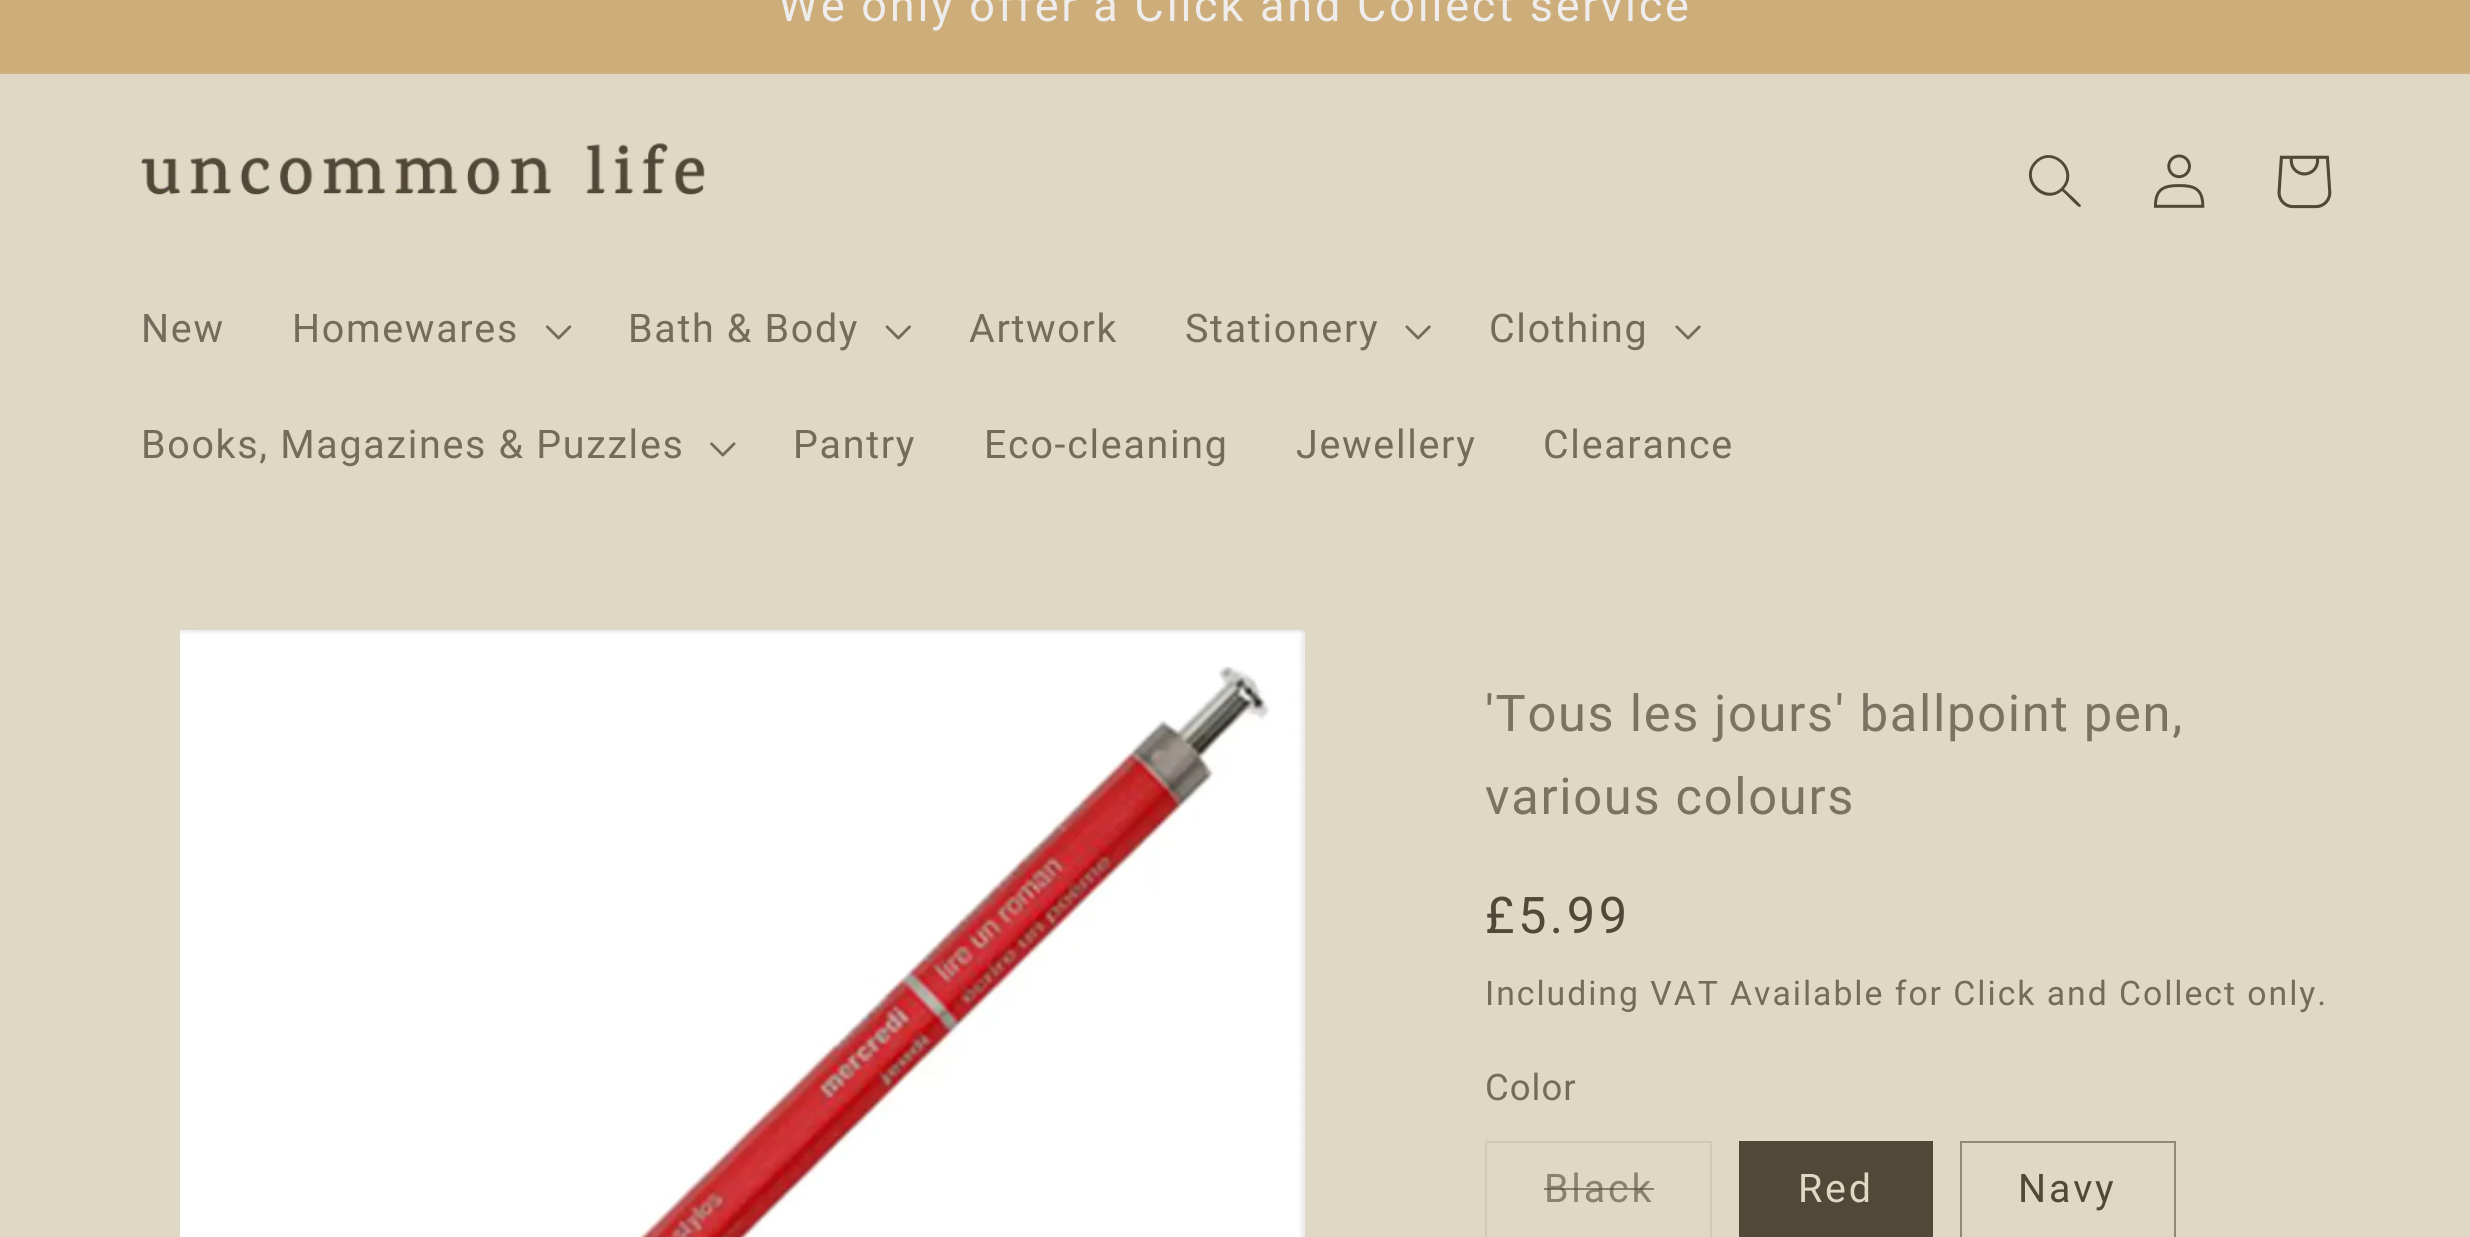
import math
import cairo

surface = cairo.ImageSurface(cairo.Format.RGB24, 2470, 1237)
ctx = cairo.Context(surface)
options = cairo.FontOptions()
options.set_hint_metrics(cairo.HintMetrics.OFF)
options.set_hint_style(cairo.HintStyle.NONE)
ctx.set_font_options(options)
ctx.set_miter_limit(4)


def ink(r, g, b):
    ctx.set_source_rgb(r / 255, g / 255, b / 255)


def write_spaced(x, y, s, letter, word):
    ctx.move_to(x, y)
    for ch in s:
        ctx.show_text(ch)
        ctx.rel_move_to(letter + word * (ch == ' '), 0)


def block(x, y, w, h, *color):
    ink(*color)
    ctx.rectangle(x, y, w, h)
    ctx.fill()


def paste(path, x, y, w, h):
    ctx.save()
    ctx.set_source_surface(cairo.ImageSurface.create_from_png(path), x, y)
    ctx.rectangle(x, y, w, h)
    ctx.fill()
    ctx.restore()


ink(222, 216, 196)
ctx.paint()
block(0, 0, 2470, 72, 205, 173, 121)
block(0, 72, 2470, 2, 208, 178, 130)
ctx.select_font_face("Roboto")
ctx.set_font_size(45)
ink(239, 236, 236)
write_spaced(778, 21, "We only offer a Click and Collect service", 2.8, 0)
paste("pic1.png", 141, 143, 564, 53)
ink(81, 72, 55)
ctx.set_fill_rule(cairo.FillRule.EVEN_ODD)
ctx.new_path()
ctx.move_to(2061, 188)
ctx.curve_to(2046, 203, 2021, 179, 2037, 163)
ctx.curve_to(2053, 147, 2077, 172, 2061, 188)
ctx.close_path()
ctx.move_to(2062, 191)
ctx.curve_to(2043, 207, 2017, 179, 2035, 161)
ctx.curve_to(2053, 143, 2081, 170, 2064, 189)
ctx.curve_to(2066, 191, 2081, 204, 2081, 206)
ctx.line_to(2080, 207)
ctx.curve_to(2078, 208, 2065, 193, 2062, 191)
ctx.close_path()
ctx.fill()
paste("pic2.png", 2153, 154, 52, 54)
paste("pic3.png", 2277, 155, 55, 54)
ctx.set_font_size(39.4)
ink(116, 108, 90)
write_spaced(141, 342, "New", 1.7, 0)
write_spaced(292, 342, "Homewares", 1.7, 0)
paste("pic4.png", 545, 325, 27, 15)
write_spaced(628, 342, "Bath & Body", 1.7, 0)
paste("pic5.png", 885, 325, 26, 15)
write_spaced(969, 342, "Artwork", 1.7, 0)
write_spaced(1185, 342, "Stationery", 1.7, 0)
paste("pic6.png", 1405, 325, 26, 15)
write_spaced(1489, 342, "Clothing", 1.7, 0)
paste("pic6.png", 1675, 325, 26, 15)
write_spaced(141, 458, "Books, Magazines & Puzzles", 1.7, 0)
paste("pic7.png", 710, 442, 26, 15)
write_spaced(793, 458, "Pantry", 1.7, 0)
write_spaced(984, 458, "Eco-cleaning", 1.7, 0)
write_spaced(1296, 458, "Jewellery", 1.7, 0)
write_spaced(1543, 458, "Clearance", 1.7, 0)
paste("pic8.png", 180, 630, 1125, 607)
ctx.set_font_size(50.6)
ink(123, 115, 97)
write_spaced(1485, 731, "'Tous les jours' ballpoint pen,", 1.7, 0)
write_spaced(1485, 814, "various colours", 1.7, 0)
ink(81, 72, 55)
write_spaced(1485, 933, "£5.99", 3.5, 0)
ctx.set_font_size(33.75)
ink(116, 108, 90)
write_spaced(1485, 1005, "Including VAT Available for Click and Collect only.", 1.97, 0)
ctx.set_font_size(36.5)
write_spaced(1485, 1100, "Color", 1, 0)
ctx.rectangle(1486, 1142, 225, 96)
ink(208, 202, 182)
ctx.stroke()
ctx.set_font_size(39.4)
ink(137, 130, 111)
write_spaced(1544, 1202, "Black", 2.8, 0)
ctx.set_source_rgba(0.318, 0.282, 0.216, 0.6)
ctx.rectangle(1544, 1188, 110, 2)
ctx.fill()
block(1739, 1141, 194, 96, 81, 72, 55)
ink(222, 216, 196)
write_spaced(1798, 1202, "Red", 2.8, 0)
ctx.rectangle(1961, 1142, 214, 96)
ink(144, 137, 118)
ctx.stroke()
ink(81, 72, 55)
write_spaced(2018, 1202, "Navy", 2.8, 0)
surface.write_to_png("screenshot.png")
